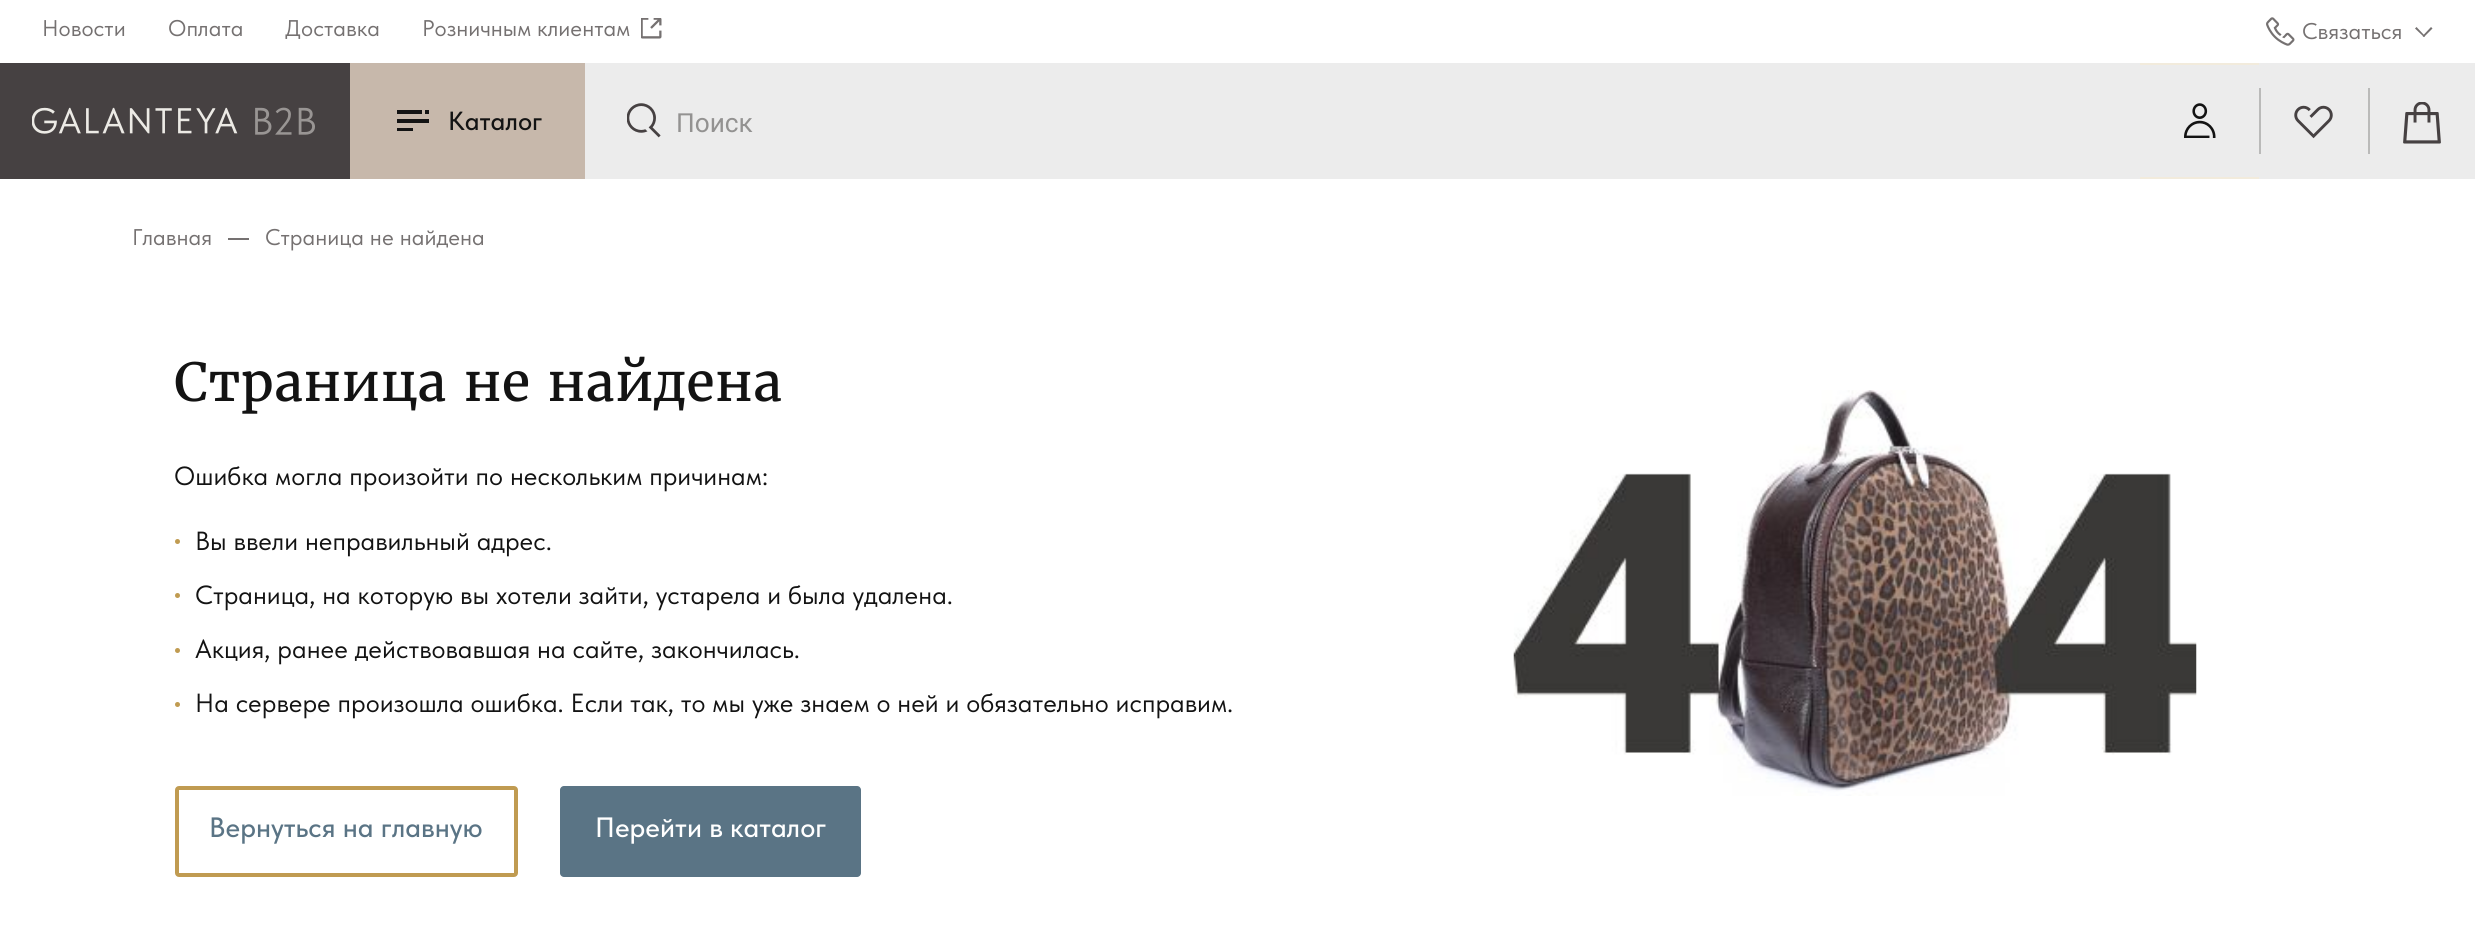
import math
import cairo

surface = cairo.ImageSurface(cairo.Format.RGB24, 2475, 940)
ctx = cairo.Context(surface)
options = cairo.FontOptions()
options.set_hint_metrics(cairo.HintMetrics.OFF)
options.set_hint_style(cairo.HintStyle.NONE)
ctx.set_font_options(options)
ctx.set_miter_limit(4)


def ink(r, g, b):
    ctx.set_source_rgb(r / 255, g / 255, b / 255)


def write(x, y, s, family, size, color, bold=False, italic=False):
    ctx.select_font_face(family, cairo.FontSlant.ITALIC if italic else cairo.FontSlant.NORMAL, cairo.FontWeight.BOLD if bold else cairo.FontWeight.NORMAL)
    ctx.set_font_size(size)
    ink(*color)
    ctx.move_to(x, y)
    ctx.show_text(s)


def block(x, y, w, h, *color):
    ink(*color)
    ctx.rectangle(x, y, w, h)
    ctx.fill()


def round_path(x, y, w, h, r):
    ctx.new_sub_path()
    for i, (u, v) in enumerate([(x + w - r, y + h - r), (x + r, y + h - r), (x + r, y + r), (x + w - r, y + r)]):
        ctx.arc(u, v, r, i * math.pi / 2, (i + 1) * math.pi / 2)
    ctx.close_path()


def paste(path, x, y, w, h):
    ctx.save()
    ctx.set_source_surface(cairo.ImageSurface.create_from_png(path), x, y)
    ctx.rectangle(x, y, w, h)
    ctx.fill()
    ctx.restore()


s1 = dict(family="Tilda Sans", size=22.75, color=(117, 113, 113))
s2 = dict(family="Tilda Sans Medium", size=26.25, color=(19, 19, 19))
s3 = dict(family="Roboto", size=26.25, color=(147, 146, 145))
s4 = dict(family="Merriweather", size=52.5, color=(19, 19, 19))
s5 = dict(family="Tilda Sans", size=26.25, color=(19, 19, 19))
s6 = dict(family="Tilda Sans Medium", size=28, color=(90, 116, 133))
s7 = dict(family="Tilda Sans Medium", size=28, color=(255, 255, 255))

ink(255, 255, 255)
ctx.paint()
write(42, 36, "Новости", **s1)
write(168, 36, "Оплата", **s1)
write(285, 36, "Доставка", **s1)
write(422, 36, "Розничным клиентам", **s1)
paste("pic1.png", 641, 18, 21, 21)
paste("pic2.png", 2266, 17, 29, 29)
write(2302, 39, "Связаться", **s1)
ctx.new_path()
ctx.move_to(2431, 27)
ctx.line_to(2432.5, 28.5)
ctx.line_to(2424, 37)
ctx.line_to(2422.5, 36)
ctx.close_path()
ctx.fill()
ctx.new_path()
ctx.move_to(2416.5, 27)
ctx.line_to(2425, 36)
ctx.line_to(2424, 37)
ctx.line_to(2415, 28.5)
ctx.close_path()
ctx.fill()
block(0, 63, 350, 116, 70, 65, 66)
paste("pic3.png", 32, 107, 283, 28)
block(350, 63, 235, 116, 199, 184, 171)
block(397, 110, 25, 4, 19, 19, 19)
ctx.new_path()
ctx.move_to(425, 114)
ctx.line_to(429, 114)
ctx.line_to(429, 110)
ctx.line_to(425, 110)
ctx.close_path()
ctx.fill()
block(397, 119, 32, 4, 19, 19, 19)
block(397, 128, 16, 3, 19, 19, 19)
write(448, 130, "Каталог", **s2)
block(585, 63, 1890, 116, 236, 236, 236)
paste("pic4.png", 627, 103, 34, 35)
write(676, 132, "Поиск", **s3)
block(2140, 63, 119, 2, 242, 235, 220)
block(2140, 177, 119, 2, 242, 235, 220)
paste("pic5.png", 2184, 103, 32, 35)
block(2259, 88, 2, 66, 186, 186, 185)
paste("pic6.png", 2294, 105, 39, 34)
block(2368, 88, 2, 66, 186, 186, 185)
paste("pic7.png", 2403, 102, 38, 42)
write(132, 245, "Главная", **s1)
block(228, 238, 21, 2, 117, 113, 113)
write(265, 245, "Страница не найдена", **s1)
write(174, 401, "Cтраница не найдена", **s4)
write(174, 485, "Ошибка могла произойти по нескольким причинам:", **s5)
ink(192, 155, 81)
ctx.new_path()
ctx.arc(177.5, 541.5, 2.5, 0, 2 * math.pi)
ctx.fill()
write(195, 550, "Вы ввели неправильный адрес.", **s5)
ink(192, 155, 81)
ctx.new_path()
ctx.arc(177.5, 595.5, 2.5, 0, 2 * math.pi)
ctx.fill()
write(195, 604, "Страница, на которую вы хотели зайти, устарела и была удалена.", **s5)
ink(192, 155, 81)
ctx.new_path()
ctx.arc(177.5, 650.5, 2.5, 0, 2 * math.pi)
ctx.fill()
write(195, 658, "Акция, ранее действовавшая на сайте, закончилась.", **s5)
ink(192, 155, 81)
ctx.new_path()
ctx.arc(177.5, 704.5, 2.5, 0, 2 * math.pi)
ctx.fill()
write(195, 712, "На сервере произошла ошибка. Если так, то мы уже знаем о ней и обязательно исправим.", **s5)
round_path(177, 788, 339, 87, 2)
ink(192, 155, 81)
ctx.set_line_width(4)
ctx.stroke()
write(209, 837, "Вернуться на главную", **s6)
round_path(560, 786, 301, 91, 4)
ctx.fill()
write(595, 837, "Перейти в каталог", **s7)
paste("pic8.png", 1513, 390, 684, 406)
surface.write_to_png("screenshot.png")
